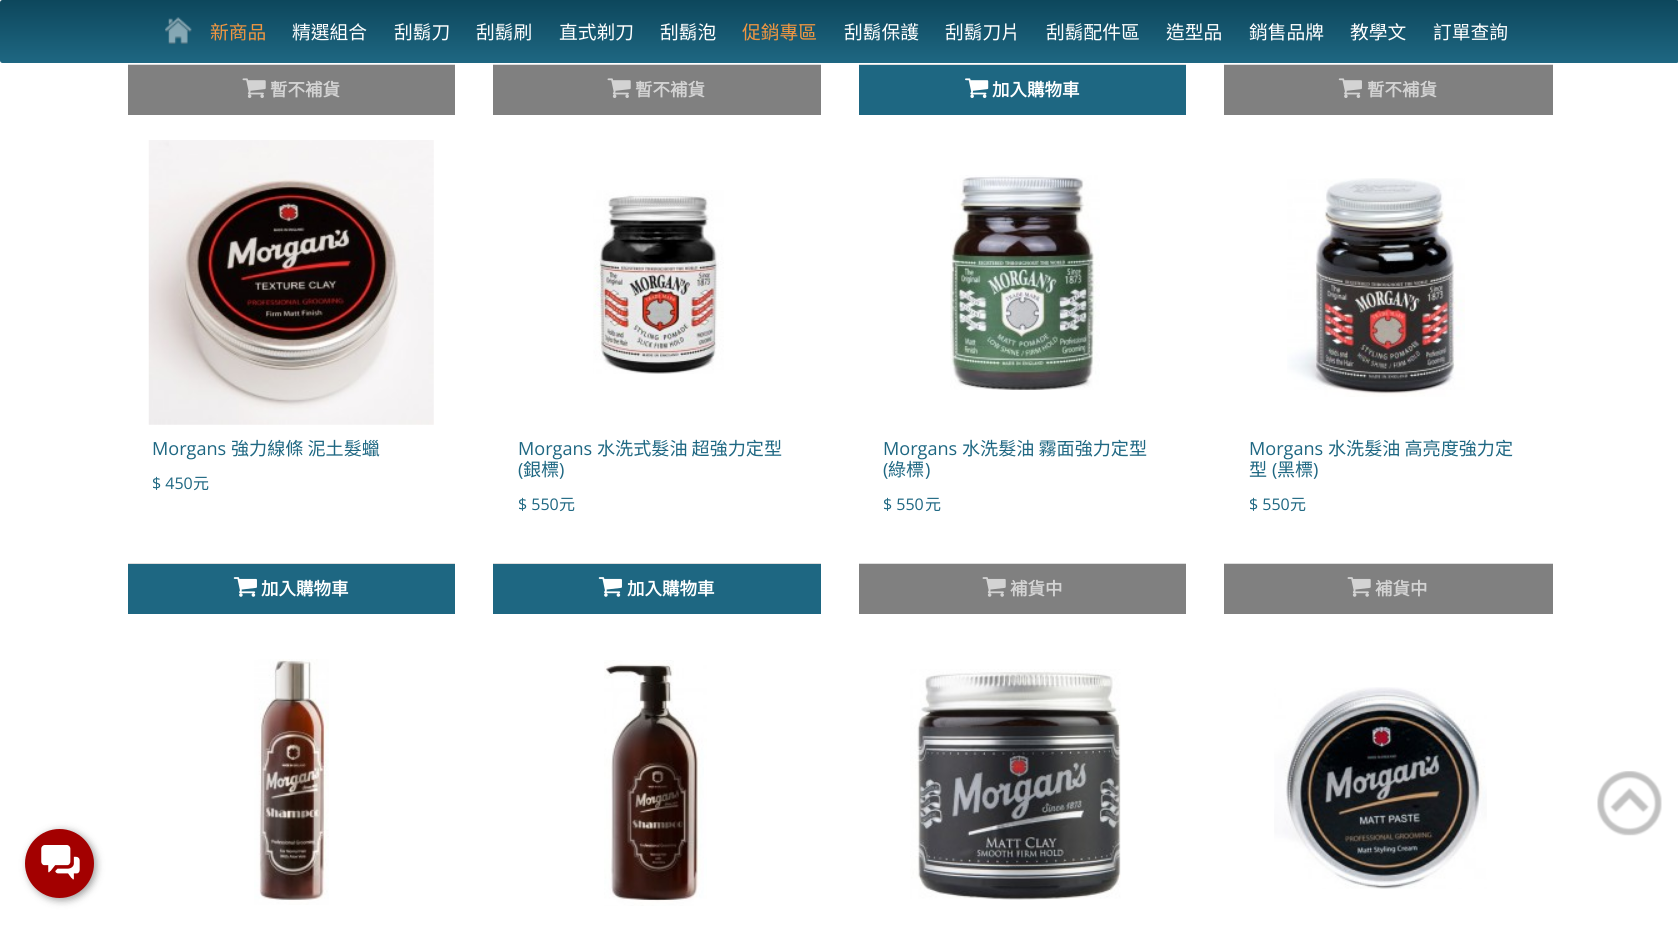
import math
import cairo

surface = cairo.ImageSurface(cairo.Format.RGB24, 1678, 934)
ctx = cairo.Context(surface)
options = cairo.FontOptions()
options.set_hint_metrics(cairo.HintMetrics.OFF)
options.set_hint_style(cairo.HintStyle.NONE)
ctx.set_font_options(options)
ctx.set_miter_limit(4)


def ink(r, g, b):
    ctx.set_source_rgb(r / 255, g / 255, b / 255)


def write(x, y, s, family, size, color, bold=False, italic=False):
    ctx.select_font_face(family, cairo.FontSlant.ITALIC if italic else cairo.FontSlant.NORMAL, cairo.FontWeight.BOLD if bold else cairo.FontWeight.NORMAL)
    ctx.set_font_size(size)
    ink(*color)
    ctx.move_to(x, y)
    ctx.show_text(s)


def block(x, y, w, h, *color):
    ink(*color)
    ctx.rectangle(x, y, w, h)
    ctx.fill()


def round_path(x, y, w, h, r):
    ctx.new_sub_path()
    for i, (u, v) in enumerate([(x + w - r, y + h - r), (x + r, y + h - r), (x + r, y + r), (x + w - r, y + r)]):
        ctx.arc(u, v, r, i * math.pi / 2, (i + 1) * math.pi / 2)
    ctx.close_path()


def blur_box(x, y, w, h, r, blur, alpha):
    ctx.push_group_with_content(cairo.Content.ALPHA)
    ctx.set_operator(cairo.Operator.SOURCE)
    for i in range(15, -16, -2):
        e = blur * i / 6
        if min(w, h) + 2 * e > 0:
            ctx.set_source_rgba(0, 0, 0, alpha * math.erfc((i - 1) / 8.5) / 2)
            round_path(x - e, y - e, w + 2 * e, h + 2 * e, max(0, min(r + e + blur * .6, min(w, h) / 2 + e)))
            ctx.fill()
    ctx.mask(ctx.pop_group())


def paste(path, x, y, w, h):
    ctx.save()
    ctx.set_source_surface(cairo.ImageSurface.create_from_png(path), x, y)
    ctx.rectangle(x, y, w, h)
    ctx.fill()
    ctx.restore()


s1 = dict(family="Noto Sans CJK TC", size=18.75, color=(240, 150, 65))
s2 = dict(family="Noto Sans CJK TC", size=18.75, color=(255, 255, 255))
s3 = dict(family="Noto Sans CJK TC", size=17.5, color=(211, 211, 211), bold=True)
s4 = dict(family="Noto Sans CJK TC", size=17.5, color=(255, 255, 255), bold=True)
s5 = dict(family="Open Sans", size=18.1, color=(30, 103, 130))
s6 = dict(family="Noto Sans CJK TC", size=18.1, color=(30, 103, 130))
s7 = dict(family="Open Sans", size=16, color=(30, 103, 130))
s8 = dict(family="Noto Sans CJK TC", size=16, color=(30, 103, 130))

ink(255, 255, 255)
ctx.paint()
gradient = cairo.LinearGradient(839, 0, 839, 63)
gradient.add_color_stop_rgba(0, 0.051, 0.278, 0.361, 1)
gradient.add_color_stop_rgba(1, 0.118, 0.404, 0.51, 1)
ctx.set_source(gradient)
round_path(0, 0, 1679, 63, 2.5)
ctx.fill()
paste("pic1.png", 165, 17, 27, 27)
write(210, 39, "新商品", **s1)
write(292, 39, "精選組合", **s2)
write(394, 39, "刮鬍刀", **s2)
write(476, 39, "刮鬍刷", **s2)
write(559, 39, "直式剃刀", **s2)
write(660, 39, "刮鬍泡", **s2)
write(742, 39, "促銷專區", **s1)
write(844, 39, "刮鬍保護", **s2)
write(945, 39, "刮鬍刀片", **s2)
write(1046, 39, "刮鬍配件區", **s2)
write(1166, 39, "造型品", **s2)
write(1249, 39, "銷售品牌", **s2)
write(1350, 39, "教學文", **s2)
write(1433, 39, "訂單查詢", **s2)
block(128, 64, 327, 1, 221, 221, 221)
block(128, 65, 327, 50, 128, 128, 128)
paste("pic2.png", 242, 78, 24, 20)
write(270, 96, "暫不補貨", **s3)
block(493, 64, 328, 1, 221, 221, 221)
block(493, 65, 328, 50, 128, 128, 128)
paste("pic2.png", 607, 78, 24, 20)
write(635, 96, "暫不補貨", **s3)
block(859, 64, 327, 1, 221, 221, 221)
block(859, 65, 327, 50, 30, 103, 130)
paste("pic3.png", 965, 78, 24, 20)
write(992, 96, "加入購物車", **s4)
block(1224, 64, 329, 1, 221, 221, 221)
block(1224, 65, 329, 50, 128, 128, 128)
paste("pic4.png", 1338, 78, 24, 20)
write(1367, 96, "暫不補貨", **s3)
paste("pic5.png", 148, 140, 286, 285)
write(152, 455, "Morgans", **s5)
write(231, 455, "強力線條 泥土髮蠟", **s6)
write(152, 489, "$ 450", **s7)
write(193, 489, "元", **s8)
block(128, 563, 327, 1, 221, 221, 221)
block(128, 564, 327, 50, 30, 103, 130)
paste("pic6.png", 233, 577, 24, 20)
write(261, 595, "加入購物車", **s4)
paste("pic7.png", 593, 190, 131, 184)
write(518, 455, "Morgans", **s5)
write(597, 455, "水洗式髮油 超強力定型", **s6)
write(518, 476, "(", **s5)
write(523, 476, "銀標", **s6)
write(559, 476, ")", **s5)
write(518, 510, "$ 550", **s7)
write(559, 510, "元", **s8)
block(493, 563, 328, 1, 221, 221, 221)
block(493, 564, 328, 50, 30, 103, 130)
paste("pic6.png", 598, 577, 24, 20)
write(627, 595, "加入購物車", **s4)
paste("pic8.png", 950, 175, 150, 215)
write(883, 455, "Morgans", **s5)
write(962, 455, "水洗髮油 霧面強力定型", **s6)
write(883, 476, "(", **s5)
write(888, 476, "綠標", **s6)
write(925, 476, ")", **s5)
write(883, 510, "$ 550", **s7)
write(925, 510, "元", **s8)
block(859, 563, 327, 1, 221, 221, 221)
block(859, 564, 327, 50, 128, 128, 128)
paste("pic9.png", 982, 577, 24, 20)
write(1010, 595, "補貨中", **s3)
paste("pic10.png", 1287, 178, 178, 219)
write(1249, 455, "Morgans", **s5)
write(1328, 455, "水洗髮油 高亮度強力定", **s6)
write(1249, 476, "型", **s6)
write(1272, 476, "(", **s5)
write(1277, 476, "黑標", **s6)
write(1313, 476, ")", **s5)
write(1249, 510, "$ 550", **s7)
write(1290, 510, "元", **s8)
block(1224, 563, 329, 1, 221, 221, 221)
block(1224, 564, 329, 50, 128, 128, 128)
paste("pic9.png", 1347, 577, 24, 20)
write(1375, 595, "補貨中", **s3)
paste("pic11.png", 254, 659, 75, 246)
paste("pic12.png", 604, 660, 103, 246)
paste("pic13.png", 910, 669, 211, 231)
paste("pic14.png", 1274, 687, 213, 202)
paste("pic15.png", 1597, 771, 65, 65)
ink(0, 0, 0)
blur_box(28, 831, 68, 69, 34, 4, 0.4)
ink(163, 0, 0)
ctx.arc(59.5, 863.5, 34.5, 0, 2 * math.pi)
ctx.fill()
paste("pic16.png", 41, 845, 39, 35)
surface.write_to_png("screenshot.png")
